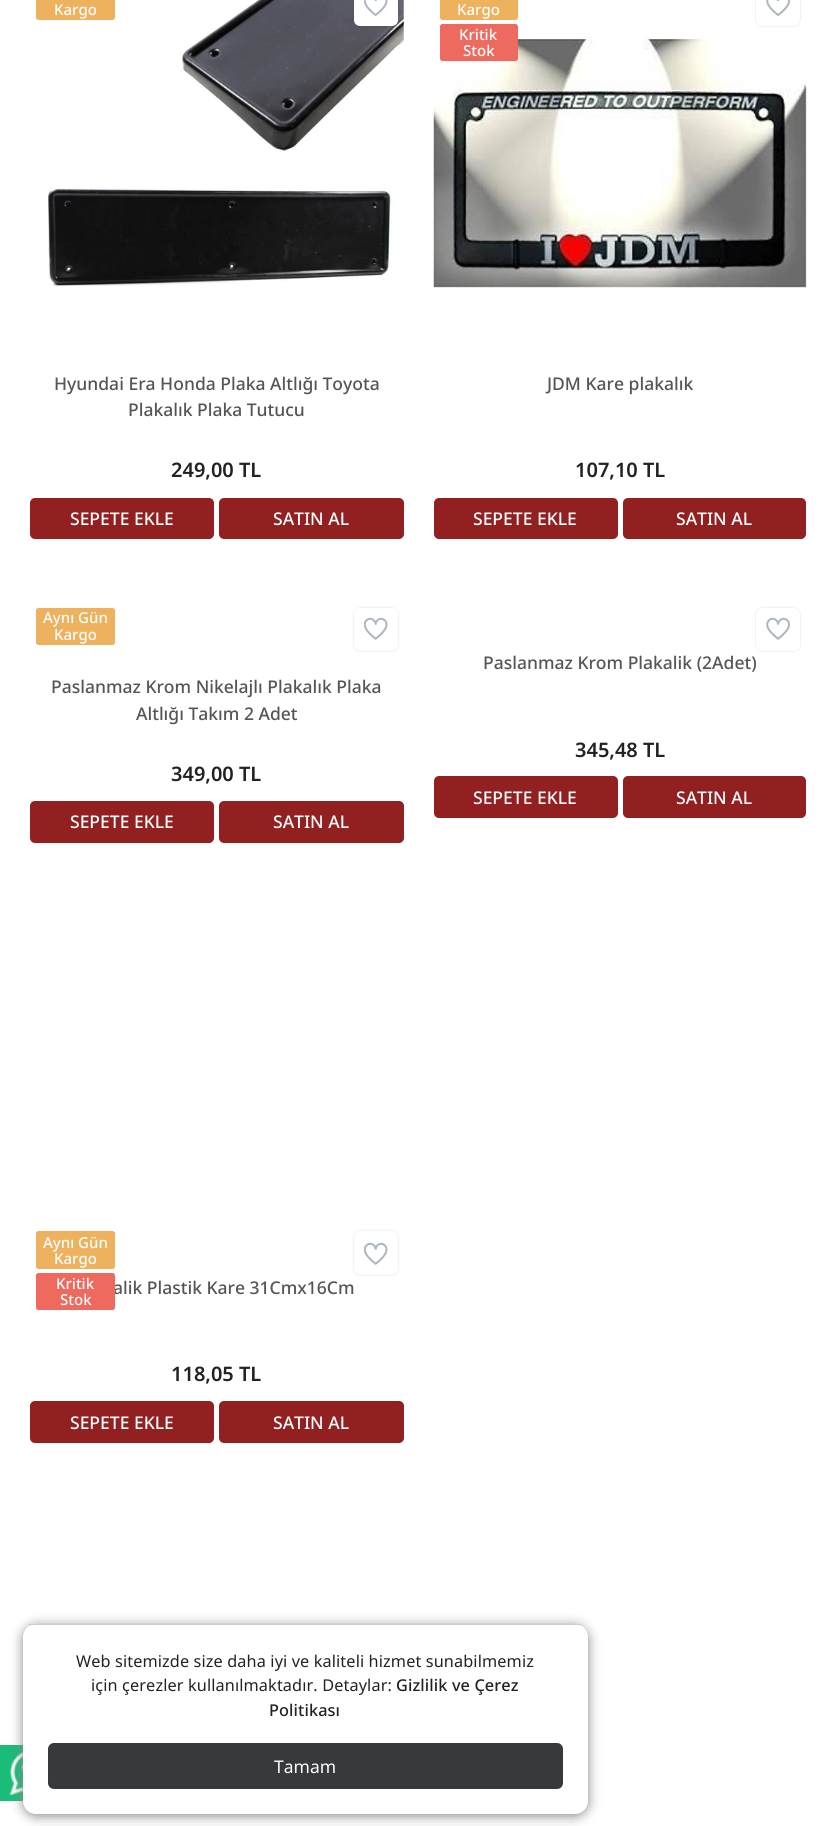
import math
import cairo

surface = cairo.ImageSurface(cairo.Format.RGB24, 836, 1826)
ctx = cairo.Context(surface)
options = cairo.FontOptions()
options.set_hint_metrics(cairo.HintMetrics.OFF)
options.set_hint_style(cairo.HintStyle.NONE)
ctx.set_font_options(options)
ctx.set_miter_limit(4)


def ink(r, g, b):
    ctx.set_source_rgb(r / 255, g / 255, b / 255)


def write(x, y, s, family, size, color, bold=False, italic=False):
    ctx.select_font_face(family, cairo.FontSlant.ITALIC if italic else cairo.FontSlant.NORMAL, cairo.FontWeight.BOLD if bold else cairo.FontWeight.NORMAL)
    ctx.set_font_size(size)
    ink(*color)
    ctx.move_to(x, y)
    ctx.show_text(s)


def write_spaced(x, y, s, letter, word):
    ctx.move_to(x, y)
    for ch in s:
        ctx.show_text(ch)
        ctx.rel_move_to(letter + word * (ch == ' '), 0)


def block(x, y, w, h, *color):
    ink(*color)
    ctx.rectangle(x, y, w, h)
    ctx.fill()


def round_path(x, y, w, h, r):
    ctx.new_sub_path()
    for i, (u, v) in enumerate([(x + w - r, y + h - r), (x + r, y + h - r), (x + r, y + r), (x + w - r, y + r)]):
        ctx.arc(u, v, r, i * math.pi / 2, (i + 1) * math.pi / 2)
    ctx.close_path()


def blur_box(x, y, w, h, r, blur, alpha):
    ctx.push_group_with_content(cairo.Content.ALPHA)
    ctx.set_operator(cairo.Operator.SOURCE)
    for i in range(15, -16, -2):
        e = blur * i / 6
        if min(w, h) + 2 * e > 0:
            ctx.set_source_rgba(0, 0, 0, alpha * math.erfc((i - 1) / 8.5) / 2)
            round_path(x - e, y - e, w + 2 * e, h + 2 * e, max(0, min(r + e + blur * .6, min(w, h) / 2 + e)))
            ctx.fill()
    ctx.mask(ctx.pop_group())


def paste(path, x, y, w, h):
    ctx.save()
    ctx.set_source_surface(cairo.ImageSurface.create_from_png(path), x, y)
    ctx.rectangle(x, y, w, h)
    ctx.fill()
    ctx.restore()


s1 = dict(family="Noto Sans Medium", size=15, color=(255, 255, 255))
s2 = dict(family="Noto Sans Medium", size=17.5, color=(85, 85, 85))
s3 = dict(family="Noto Sans SemiBold", size=20, color=(34, 34, 34))
s4 = dict(family="Noto Sans Medium", size=17.5, color=(255, 255, 255))
s5 = dict(family="Noto Sans", size=17.5, color=(255, 255, 255))

ink(255, 255, 255)
ctx.paint()
paste("pic2.png", 47, 0, 357, 287)
ink(0, 0, 0)
blur_box(354, -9, 44, 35, 6, 1, 0.15)
ink(255, 255, 255)
round_path(354, -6, 44, 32, 6)
ctx.fill()
paste("pic1.png", 364, 0, 24, 17)
ink(238, 178, 95)
round_path(36, -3, 79, 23, 2.5)
ctx.fill()
write(54, 15, "Kargo", **s1)
write(54, 390, "Hyundai Era Honda Plaka Altlığı Toyota", **s2)
write(128, 416, "Plakalık Plaka Tutucu", **s2)
write(171, 477, "249,00 TL", **s3)
ink(146, 32, 32)
round_path(30, 498, 184, 41, 5)
ctx.fill()
write(70, 525, "SEPETE EKLE", **s4)
ink(146, 32, 32)
round_path(219, 498, 185, 41, 5)
ctx.fill()
write(273, 525, "SATIN AL", **s4)
ink(238, 178, 95)
round_path(440, -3, 78, 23, 2.5)
ctx.fill()
write(457, 15, "Kargo", **s1)
paste("pic4.png", 433, 36, 374, 252)
ink(238, 106, 95)
round_path(440, 24, 78, 37, 2.5)
ctx.fill()
write(459, 40, "Kritik", **s1)
write(463, 56, "Stok", **s1)
write(547, 390, "JDM Kare plakalık", **s2)
write(575, 477, "107,10 TL", **s3)
ink(146, 32, 32)
round_path(434, 498, 184, 41, 5)
ctx.fill()
write(473, 525, "SEPETE EKLE", **s4)
ink(146, 32, 32)
round_path(623, 498, 183, 41, 5)
ctx.fill()
write(676, 525, "SATIN AL", **s4)
ink(0, 0, 0)
blur_box(756, -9, 44, 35, 6, 1, 0.15)
ink(255, 255, 255)
round_path(756, -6, 44, 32, 6)
ctx.fill()
paste("pic3.png", 766, 0, 24, 16)
ink(0, 0, 0)
blur_box(354, 608, 44, 43, 6, 1, 0.15)
ink(255, 255, 255)
round_path(354, 608, 44, 43, 6)
ctx.fill()
paste("pic5.png", 364, 617, 24, 23)
ink(238, 178, 95)
round_path(36, 608, 79, 37, 2.5)
ctx.fill()
write(43, 623, "Aynı Gün", **s1)
write(54, 640, "Kargo", **s1)
write(51, 693, "Paslanmaz Krom Nikelajlı Plakalık Plaka", **s2)
write(136, 720, "Altlığı Takım 2 Adet", **s2)
write(171, 781, "349,00 TL", **s3)
ink(146, 32, 32)
round_path(30, 801, 184, 42, 5)
ctx.fill()
write(70, 828, "SEPETE EKLE", **s4)
ink(146, 32, 32)
round_path(219, 801, 185, 42, 5)
ctx.fill()
write(273, 828, "SATIN AL", **s4)
ink(0, 0, 0)
blur_box(756, 608, 44, 43, 6, 1, 0.15)
ink(255, 255, 255)
round_path(756, 608, 44, 43, 6)
ctx.fill()
paste("pic6.png", 766, 617, 24, 23)
write(483, 669, "Paslanmaz Krom Plakalik (2Adet)", **s2)
write(575, 757, "345,48 TL", **s3)
ink(146, 32, 32)
round_path(434, 776, 184, 42, 5)
ctx.fill()
write(473, 804, "SEPETE EKLE", **s4)
ink(146, 32, 32)
round_path(623, 776, 183, 42, 5)
ctx.fill()
write(676, 804, "SATIN AL", **s4)
ink(238, 178, 95)
round_path(36, 1231, 79, 38, 2.5)
ctx.fill()
write(43, 1248, "Aynı Gün", **s1)
write(54, 1264, "Kargo", **s1)
write(113, 1294, "alik Plastik Kare 31Cmx16Cm", **s2)
ink(238, 106, 95)
round_path(36, 1273, 79, 37, 2.5)
ctx.fill()
write(56, 1289, "Kritik", **s1)
write(60, 1305, "Stok", **s1)
write(171, 1381, "118,05 TL", **s3)
ink(146, 32, 32)
round_path(30, 1401, 184, 42, 5)
ctx.fill()
write(70, 1429, "SEPETE EKLE", **s4)
ink(146, 32, 32)
round_path(219, 1401, 185, 42, 5)
ctx.fill()
write(273, 1429, "SATIN AL", **s4)
ink(0, 0, 0)
blur_box(354, 1231, 44, 44, 6, 1, 0.15)
ink(255, 255, 255)
round_path(354, 1231, 44, 44, 6)
ctx.fill()
paste("pic5.png", 364, 1242, 24, 23)
paste("pic7.png", 0, 1745, 23, 56)
ink(136, 136, 136)
blur_box(23, 1626, 565, 190, 13, 6, 1)
ink(255, 255, 255)
round_path(23, 1624, 565, 190, 13)
ctx.fill()
block(29, 1624, 552, 1, 204, 204, 204)
ctx.select_font_face("Noto Sans")
ctx.set_font_size(16.25)
ink(34, 34, 34)
write_spaced(76, 1667, "Web sitemizde size daha iyi ve kaliteli hizmet sunabilmemiz", 0.12, 0)
write_spaced(91, 1691, "için çerezler kullanılmaktadır. Detaylar:", 0.12, 0)
ctx.select_font_face("Noto Sans Medium")
write_spaced(396, 1691, "Gizlilik ve Çerez", 0.12, 0)
write_spaced(269, 1716, "Politikası", 0.12, 0)
ink(55, 57, 59)
round_path(48, 1743, 515, 46, 6)
ctx.fill()
write(274, 1773, "Tamam", **s5)
surface.write_to_png("screenshot.png")
